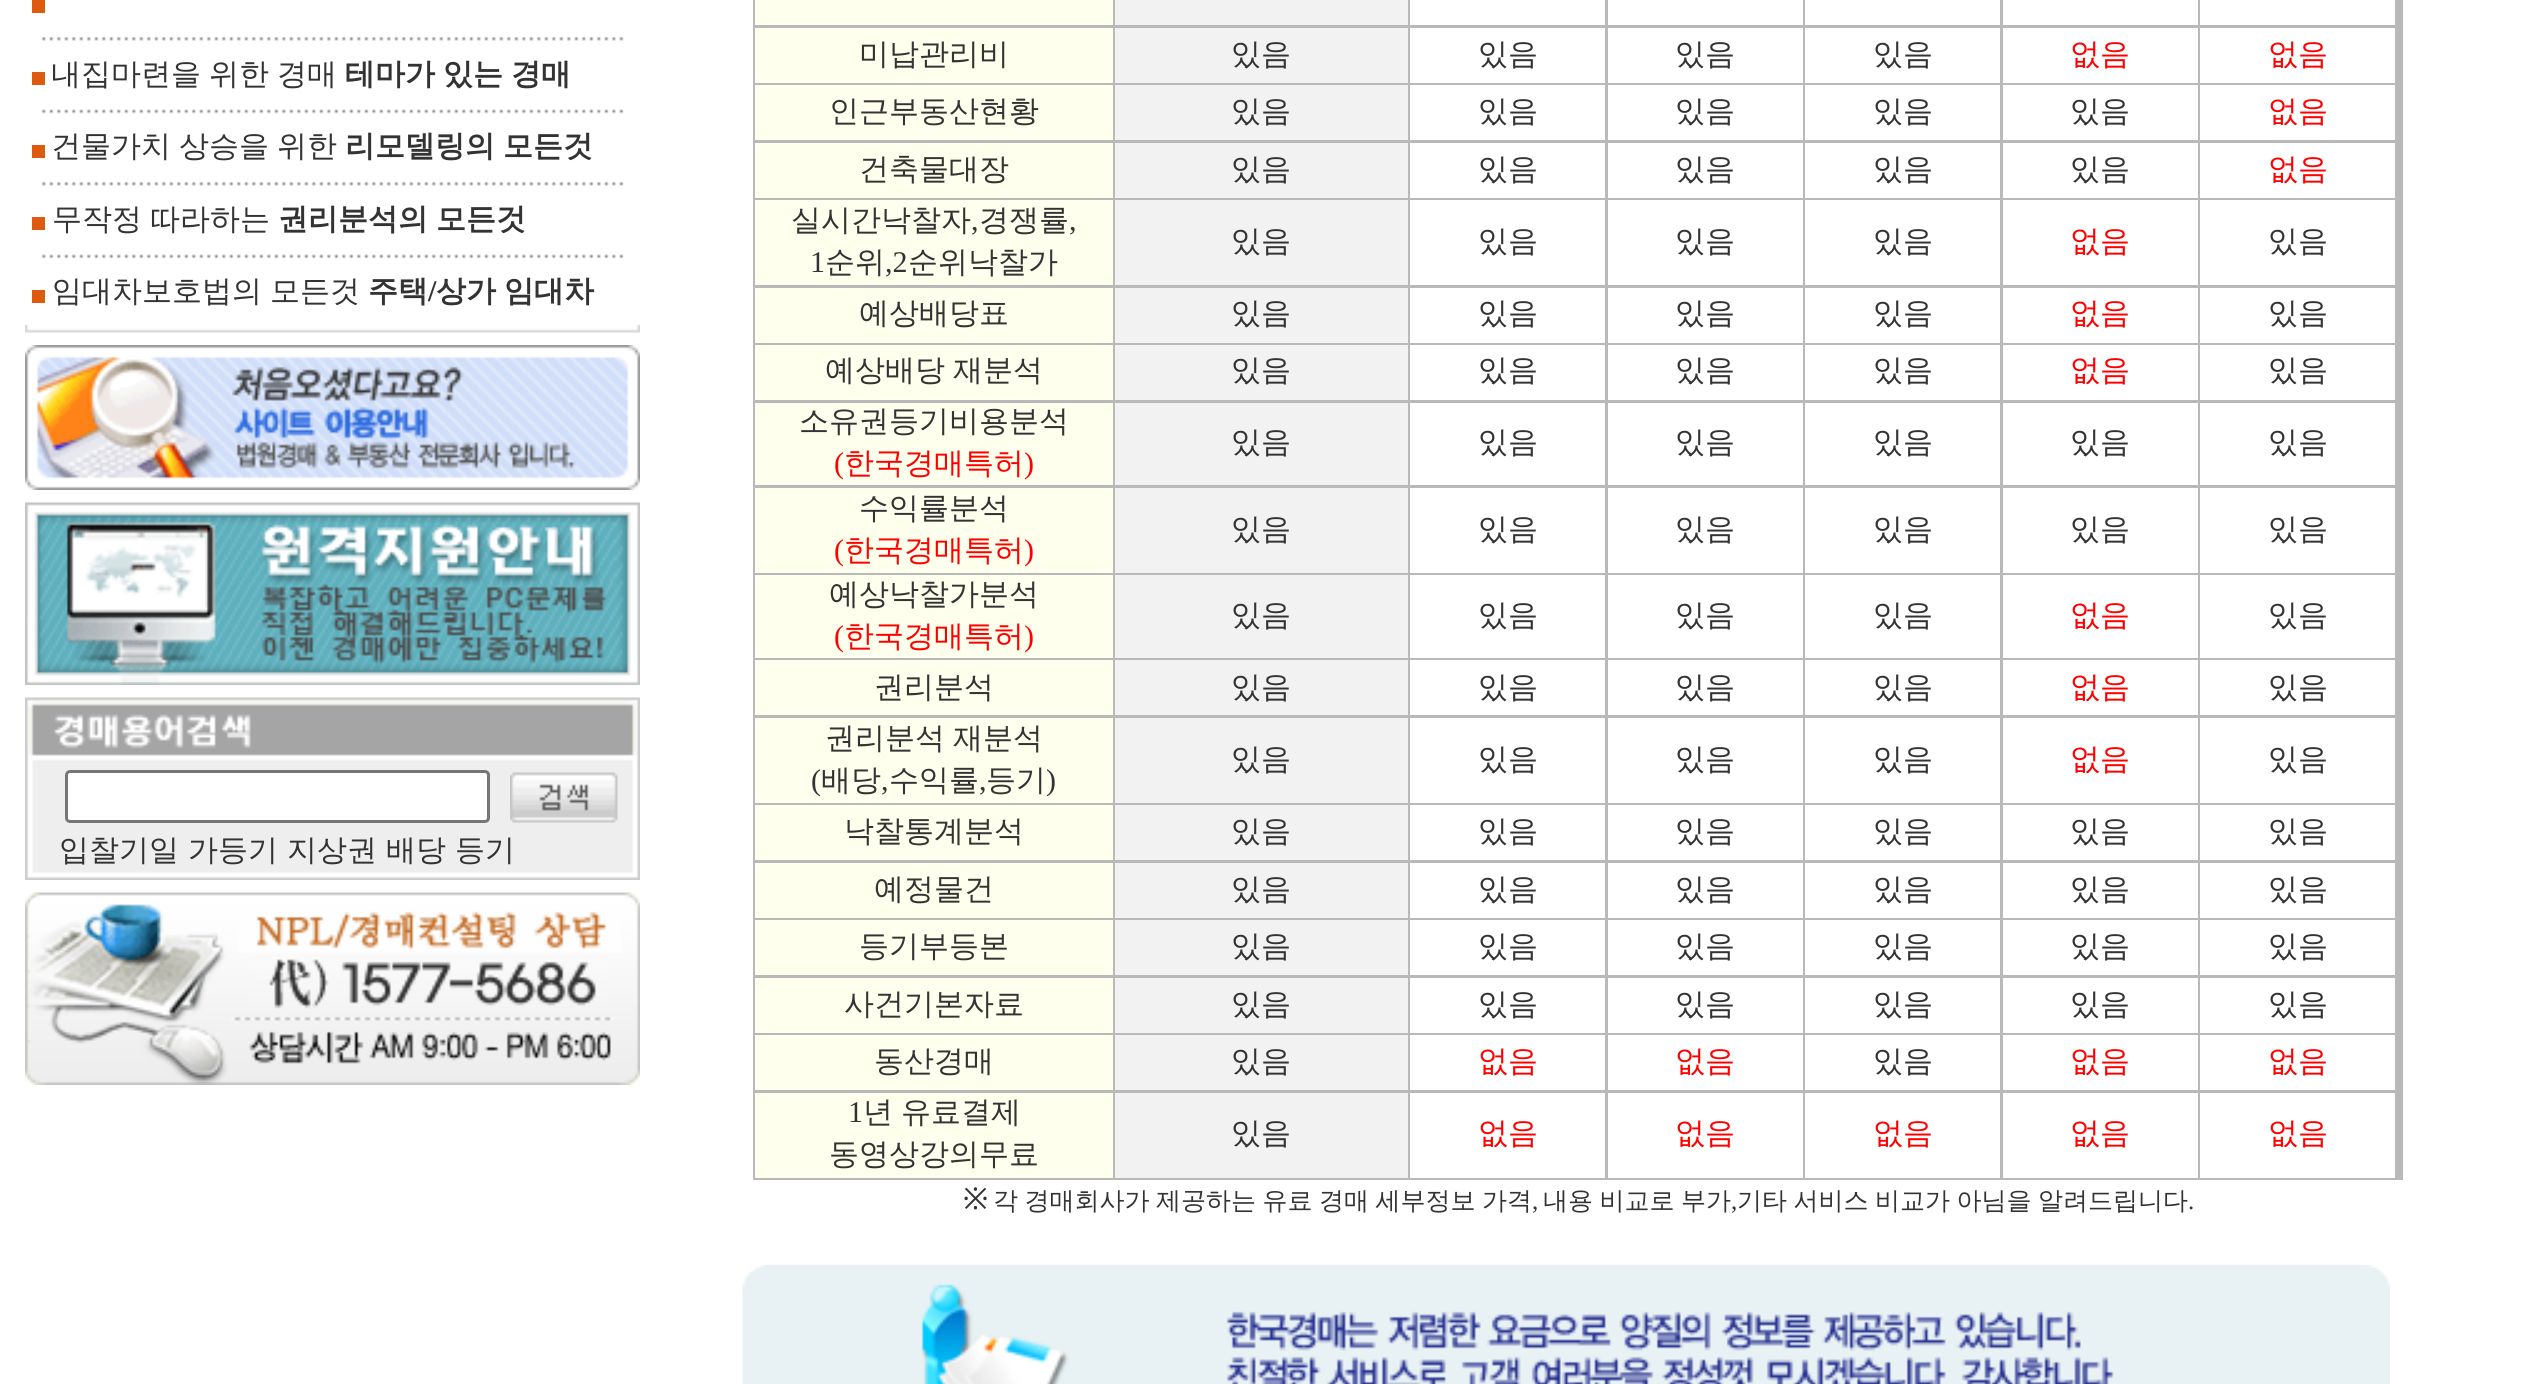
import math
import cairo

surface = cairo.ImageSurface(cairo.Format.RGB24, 2531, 1384)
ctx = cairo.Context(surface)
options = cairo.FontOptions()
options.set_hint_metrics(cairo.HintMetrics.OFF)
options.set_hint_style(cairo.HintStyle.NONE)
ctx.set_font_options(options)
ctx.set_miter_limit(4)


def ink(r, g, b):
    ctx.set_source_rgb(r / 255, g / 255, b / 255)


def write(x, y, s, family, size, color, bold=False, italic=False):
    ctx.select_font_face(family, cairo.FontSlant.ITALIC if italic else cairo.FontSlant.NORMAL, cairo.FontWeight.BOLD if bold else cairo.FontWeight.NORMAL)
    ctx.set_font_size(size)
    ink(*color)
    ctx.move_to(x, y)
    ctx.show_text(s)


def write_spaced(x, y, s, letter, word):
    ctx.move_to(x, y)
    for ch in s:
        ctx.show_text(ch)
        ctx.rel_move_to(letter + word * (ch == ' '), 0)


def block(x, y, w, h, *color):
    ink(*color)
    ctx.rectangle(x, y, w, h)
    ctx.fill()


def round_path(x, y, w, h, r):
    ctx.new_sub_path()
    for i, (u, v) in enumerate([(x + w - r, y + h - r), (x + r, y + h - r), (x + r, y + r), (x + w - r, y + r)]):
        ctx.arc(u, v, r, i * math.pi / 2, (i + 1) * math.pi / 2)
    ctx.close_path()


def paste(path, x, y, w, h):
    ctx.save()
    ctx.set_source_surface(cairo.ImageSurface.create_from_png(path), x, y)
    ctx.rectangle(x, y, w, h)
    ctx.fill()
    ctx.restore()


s1 = dict(family="WenQuanYi Zen Hei", size=30, color=(51, 51, 51), bold=True)
s2 = dict(family="Liberation Serif", size=30, color=(51, 51, 51), bold=True)
s3 = dict(family="WenQuanYi Zen Hei Medium", size=30, color=(51, 51, 51))
s4 = dict(family="WenQuanYi Zen Hei Medium", size=30, color=(255, 0, 0))
s5 = dict(family="Liberation Serif", size=30, color=(51, 51, 51))
s6 = dict(family="Liberation Serif", size=30, color=(255, 0, 0))
s7 = dict(family="Noto Sans", size=30, color=(51, 51, 51))
s8 = dict(family="Liberation Serif", size=25, color=(51, 51, 51))

ink(255, 255, 255)
ctx.paint()
block(32, 0, 13, 13, 222, 90, 16)
paste("pic1.png", 41, 36, 583, 5)
ctx.select_font_face("WenQuanYi Zen Hei Medium")
ctx.set_font_size(30)
ink(51, 51, 51)
write_spaced(51, 84, "내집마련을 위한 경매", 0, -1)
block(32, 72, 13, 13, 222, 90, 16)
ctx.select_font_face("WenQuanYi Zen Hei", cairo.FontSlant.NORMAL, cairo.FontWeight.BOLD)
ink(51, 51, 51)
write_spaced(345, 84, "테마가 있는 경매", 0, -1)
paste("pic2.png", 41, 109, 583, 5)
ctx.select_font_face("WenQuanYi Zen Hei Medium")
write_spaced(51, 156, "건물가치 상승을 위한", 0, -1)
block(32, 145, 13, 13, 222, 90, 16)
ctx.select_font_face("WenQuanYi Zen Hei", cairo.FontSlant.NORMAL, cairo.FontWeight.BOLD)
ink(51, 51, 51)
write_spaced(345, 156, "리모델링의 모든것", 0, -1)
paste("pic1.png", 41, 181, 583, 5)
ctx.select_font_face("WenQuanYi Zen Hei Medium")
write_spaced(52, 229, "무작정 따라하는", 0, -1)
block(32, 217, 13, 13, 222, 90, 16)
ctx.select_font_face("WenQuanYi Zen Hei", cairo.FontSlant.NORMAL, cairo.FontWeight.BOLD)
ink(51, 51, 51)
write_spaced(278, 229, "권리분석의 모든것", 0, -1)
paste("pic2.png", 41, 254, 583, 5)
ctx.select_font_face("WenQuanYi Zen Hei Medium")
write_spaced(52, 301, "임대차보호법의 모든것", 0, -1)
block(32, 290, 13, 13, 222, 90, 16)
write(368, 301, "주택", **s1)
write(428, 301, "/", **s2)
ctx.select_font_face("WenQuanYi Zen Hei", cairo.FontSlant.NORMAL, cairo.FontWeight.BOLD)
write_spaced(436, 301, "상가 임대차", 0, -1)
paste("pic3.png", 25, 325, 615, 8)
paste("pic4.png", 25, 345, 615, 145)
paste("pic5.png", 25, 502, 615, 183)
paste("pic6.png", 25, 697, 615, 183)
ink(255, 255, 255)
round_path(66.5, 771.5, 422, 50, 3.5)
ctx.fill_preserve()
ink(118, 118, 118)
ctx.set_line_width(3)
ctx.stroke()
paste("pic7.png", 510, 772, 108, 51)
write(59, 860, "입찰기일 가등기 지상권 배당 등기", **s3)
paste("pic8.png", 25, 892, 615, 193)
block(753, 0, 1650, 1180, 185, 185, 185)
block(755, 0, 358, 25, 255, 255, 238)
block(1115, 0, 293, 25, 242, 242, 242)
block(1410, 0, 195, 25, 255, 255, 255)
block(1608, 0, 195, 25, 255, 255, 255)
block(1805, 0, 195, 25, 255, 255, 255)
block(2003, 0, 195, 25, 255, 255, 255)
block(2200, 0, 195, 25, 255, 255, 255)
block(755, 28, 358, 55, 255, 255, 238)
write(859, 64, "미납관리비", **s3)
block(1115, 28, 293, 55, 242, 242, 242)
write(1231, 64, "있음", **s3)
block(1410, 28, 195, 55, 255, 255, 255)
write(1478, 64, "있음", **s3)
block(1608, 28, 195, 55, 255, 255, 255)
write(1675, 64, "있음", **s3)
block(1805, 28, 195, 55, 255, 255, 255)
write(1873, 64, "있음", **s3)
block(2003, 28, 195, 55, 255, 255, 255)
write(2070, 64, "없음", **s4)
block(2200, 28, 195, 55, 255, 255, 255)
write(2268, 64, "없음", **s4)
block(755, 85, 358, 55, 255, 255, 238)
write(829, 121, "인근부동산현황", **s3)
block(1115, 85, 293, 55, 242, 242, 242)
write(1231, 121, "있음", **s3)
block(1410, 85, 195, 55, 255, 255, 255)
write(1478, 121, "있음", **s3)
block(1608, 85, 195, 55, 255, 255, 255)
write(1675, 121, "있음", **s3)
block(1805, 85, 195, 55, 255, 255, 255)
write(1873, 121, "있음", **s3)
block(2003, 85, 195, 55, 255, 255, 255)
write(2070, 121, "있음", **s3)
block(2200, 85, 195, 55, 255, 255, 255)
write(2268, 121, "없음", **s4)
block(755, 143, 358, 55, 255, 255, 238)
write(859, 179, "건축물대장", **s3)
block(1115, 143, 293, 55, 242, 242, 242)
write(1231, 179, "있음", **s3)
block(1410, 143, 195, 55, 255, 255, 255)
write(1478, 179, "있음", **s3)
block(1608, 143, 195, 55, 255, 255, 255)
write(1675, 179, "있음", **s3)
block(1805, 143, 195, 55, 255, 255, 255)
write(1873, 179, "있음", **s3)
block(2003, 143, 195, 55, 255, 255, 255)
write(2070, 179, "있음", **s3)
block(2200, 143, 195, 55, 255, 255, 255)
write(2268, 179, "없음", **s4)
block(755, 200, 358, 85, 255, 255, 238)
write(791, 230, "실시간낙찰자", **s3)
write(971, 230, ",", **s5)
write(979, 230, "경쟁률", **s3)
write(1069, 230, ",", **s5)
write(810, 272, "1", **s5)
write(825, 272, "순위", **s3)
write(885, 272, ",2", **s5)
write(908, 272, "순위낙찰가", **s3)
block(1115, 200, 293, 85, 242, 242, 242)
write(1231, 251, "있음", **s3)
block(1410, 200, 195, 85, 255, 255, 255)
write(1478, 251, "있음", **s3)
block(1608, 200, 195, 85, 255, 255, 255)
write(1675, 251, "있음", **s3)
block(1805, 200, 195, 85, 255, 255, 255)
write(1873, 251, "있음", **s3)
block(2003, 200, 195, 85, 255, 255, 255)
write(2070, 251, "없음", **s4)
block(2200, 200, 195, 85, 255, 255, 255)
write(2268, 251, "있음", **s3)
block(755, 288, 358, 55, 255, 255, 238)
write(859, 323, "예상배당표", **s3)
block(1115, 288, 293, 55, 242, 242, 242)
write(1231, 323, "있음", **s3)
block(1410, 288, 195, 55, 255, 255, 255)
write(1478, 323, "있음", **s3)
block(1608, 288, 195, 55, 255, 255, 255)
write(1675, 323, "있음", **s3)
block(1805, 288, 195, 55, 255, 255, 255)
write(1873, 323, "있음", **s3)
block(2003, 288, 195, 55, 255, 255, 255)
write(2070, 323, "없음", **s4)
block(2200, 288, 195, 55, 255, 255, 255)
write(2268, 323, "있음", **s3)
block(755, 345, 358, 55, 255, 255, 238)
ink(51, 51, 51)
write_spaced(825, 380, "예상배당 재분석", 0, -1)
block(1115, 345, 293, 55, 242, 242, 242)
write(1231, 380, "있음", **s3)
block(1410, 345, 195, 55, 255, 255, 255)
write(1478, 380, "있음", **s3)
block(1608, 345, 195, 55, 255, 255, 255)
write(1675, 380, "있음", **s3)
block(1805, 345, 195, 55, 255, 255, 255)
write(1873, 380, "있음", **s3)
block(2003, 345, 195, 55, 255, 255, 255)
write(2070, 380, "없음", **s4)
block(2200, 345, 195, 55, 255, 255, 255)
write(2268, 380, "있음", **s3)
block(755, 403, 358, 82, 255, 255, 238)
write(799, 431, "소유권등기비용분석", **s3)
write(834, 473, "(", **s6)
write(844, 473, "한국경매특허", **s4)
write(1024, 473, ")", **s6)
block(1115, 403, 293, 82, 242, 242, 242)
write(1231, 452, "있음", **s3)
block(1410, 403, 195, 82, 255, 255, 255)
write(1478, 452, "있음", **s3)
block(1608, 403, 195, 82, 255, 255, 255)
write(1675, 452, "있음", **s3)
block(1805, 403, 195, 82, 255, 255, 255)
write(1873, 452, "있음", **s3)
block(2003, 403, 195, 82, 255, 255, 255)
write(2070, 452, "있음", **s3)
block(2200, 403, 195, 82, 255, 255, 255)
write(2268, 452, "있음", **s3)
block(755, 488, 358, 85, 255, 255, 238)
write(859, 518, "수익률분석", **s3)
write(834, 560, "(", **s6)
write(844, 560, "한국경매특허", **s4)
write(1024, 560, ")", **s6)
block(1115, 488, 293, 85, 242, 242, 242)
write(1231, 539, "있음", **s3)
block(1410, 488, 195, 85, 255, 255, 255)
write(1478, 539, "있음", **s3)
block(1608, 488, 195, 85, 255, 255, 255)
write(1675, 539, "있음", **s3)
block(1805, 488, 195, 85, 255, 255, 255)
write(1873, 539, "있음", **s3)
block(2003, 488, 195, 85, 255, 255, 255)
write(2070, 539, "있음", **s3)
block(2200, 488, 195, 85, 255, 255, 255)
write(2268, 539, "있음", **s3)
block(755, 575, 358, 83, 255, 255, 238)
write(829, 604, "예상낙찰가분석", **s3)
write(834, 646, "(", **s6)
write(844, 646, "한국경매특허", **s4)
write(1024, 646, ")", **s6)
block(1115, 575, 293, 83, 242, 242, 242)
write(1231, 625, "있음", **s3)
block(1410, 575, 195, 83, 255, 255, 255)
write(1478, 625, "있음", **s3)
block(1608, 575, 195, 83, 255, 255, 255)
write(1675, 625, "있음", **s3)
block(1805, 575, 195, 83, 255, 255, 255)
write(1873, 625, "있음", **s3)
block(2003, 575, 195, 83, 255, 255, 255)
write(2070, 625, "없음", **s4)
block(2200, 575, 195, 83, 255, 255, 255)
write(2268, 625, "있음", **s3)
block(755, 660, 358, 55, 255, 255, 238)
write(874, 697, "권리분석", **s3)
block(1115, 660, 293, 55, 242, 242, 242)
write(1231, 697, "있음", **s3)
block(1410, 660, 195, 55, 255, 255, 255)
write(1478, 697, "있음", **s3)
block(1608, 660, 195, 55, 255, 255, 255)
write(1675, 697, "있음", **s3)
block(1805, 660, 195, 55, 255, 255, 255)
write(1873, 697, "있음", **s3)
block(2003, 660, 195, 55, 255, 255, 255)
write(2070, 697, "없음", **s4)
block(2200, 660, 195, 55, 255, 255, 255)
write(2268, 697, "있음", **s3)
block(755, 718, 358, 85, 255, 255, 238)
ink(51, 51, 51)
write_spaced(825, 748, "권리분석 재분석", 0, -1)
write(811, 790, "(", **s5)
write(821, 790, "배당", **s3)
write(881, 790, ",", **s5)
write(889, 790, "수익률", **s3)
write(979, 790, ",", **s5)
write(986, 790, "등기", **s3)
write(1046, 790, ")", **s5)
block(1115, 718, 293, 85, 242, 242, 242)
write(1231, 769, "있음", **s3)
block(1410, 718, 195, 85, 255, 255, 255)
write(1478, 769, "있음", **s3)
block(1608, 718, 195, 85, 255, 255, 255)
write(1675, 769, "있음", **s3)
block(1805, 718, 195, 85, 255, 255, 255)
write(1873, 769, "있음", **s3)
block(2003, 718, 195, 85, 255, 255, 255)
write(2070, 769, "없음", **s4)
block(2200, 718, 195, 85, 255, 255, 255)
write(2268, 769, "있음", **s3)
block(755, 805, 358, 55, 255, 255, 238)
write(844, 841, "낙찰통계분석", **s3)
block(1115, 805, 293, 55, 242, 242, 242)
write(1231, 841, "있음", **s3)
block(1410, 805, 195, 55, 255, 255, 255)
write(1478, 841, "있음", **s3)
block(1608, 805, 195, 55, 255, 255, 255)
write(1675, 841, "있음", **s3)
block(1805, 805, 195, 55, 255, 255, 255)
write(1873, 841, "있음", **s3)
block(2003, 805, 195, 55, 255, 255, 255)
write(2070, 841, "있음", **s3)
block(2200, 805, 195, 55, 255, 255, 255)
write(2268, 841, "있음", **s3)
block(755, 863, 358, 55, 255, 255, 238)
write(874, 899, "예정물건", **s3)
block(1115, 863, 293, 55, 242, 242, 242)
write(1231, 899, "있음", **s3)
block(1410, 863, 195, 55, 255, 255, 255)
write(1478, 899, "있음", **s3)
block(1608, 863, 195, 55, 255, 255, 255)
write(1675, 899, "있음", **s3)
block(1805, 863, 195, 55, 255, 255, 255)
write(1873, 899, "있음", **s3)
block(2003, 863, 195, 55, 255, 255, 255)
write(2070, 899, "있음", **s3)
block(2200, 863, 195, 55, 255, 255, 255)
write(2268, 899, "있음", **s3)
block(755, 920, 358, 55, 255, 255, 238)
write(859, 956, "등기부등본", **s3)
block(1115, 920, 293, 55, 242, 242, 242)
write(1231, 956, "있음", **s3)
block(1410, 920, 195, 55, 255, 255, 255)
write(1478, 956, "있음", **s3)
block(1608, 920, 195, 55, 255, 255, 255)
write(1675, 956, "있음", **s3)
block(1805, 920, 195, 55, 255, 255, 255)
write(1873, 956, "있음", **s3)
block(2003, 920, 195, 55, 255, 255, 255)
write(2070, 956, "있음", **s3)
block(2200, 920, 195, 55, 255, 255, 255)
write(2268, 956, "있음", **s3)
block(755, 978, 358, 55, 255, 255, 238)
write(844, 1014, "사건기본자료", **s3)
block(1115, 978, 293, 55, 242, 242, 242)
write(1231, 1014, "있음", **s3)
block(1410, 978, 195, 55, 255, 255, 255)
write(1478, 1014, "있음", **s3)
block(1608, 978, 195, 55, 255, 255, 255)
write(1675, 1014, "있음", **s3)
block(1805, 978, 195, 55, 255, 255, 255)
write(1873, 1014, "있음", **s3)
block(2003, 978, 195, 55, 255, 255, 255)
write(2070, 1014, "있음", **s3)
block(2200, 978, 195, 55, 255, 255, 255)
write(2268, 1014, "있음", **s3)
block(755, 1035, 358, 55, 255, 255, 238)
write(874, 1071, "동산경매", **s3)
block(1115, 1035, 293, 55, 242, 242, 242)
write(1231, 1071, "있음", **s3)
block(1410, 1035, 195, 55, 255, 255, 255)
write(1478, 1071, "없음", **s4)
block(1608, 1035, 195, 55, 255, 255, 255)
write(1675, 1071, "없음", **s4)
block(1805, 1035, 195, 55, 255, 255, 255)
write(1873, 1071, "있음", **s3)
block(2003, 1035, 195, 55, 255, 255, 255)
write(2070, 1071, "없음", **s4)
block(2200, 1035, 195, 55, 255, 255, 255)
write(2268, 1071, "없음", **s4)
block(755, 1093, 358, 85, 255, 255, 238)
write(848, 1122, "1", **s5)
ctx.select_font_face("WenQuanYi Zen Hei Medium")
write_spaced(863, 1122, "년 유료결제", 0, -1)
write(829, 1164, "동영상강의무료", **s3)
block(1115, 1093, 293, 85, 242, 242, 242)
write(1231, 1143, "있음", **s3)
block(1410, 1093, 195, 85, 255, 255, 255)
write(1478, 1143, "없음", **s4)
block(1608, 1093, 195, 85, 255, 255, 255)
write(1675, 1143, "없음", **s4)
block(1805, 1093, 195, 85, 255, 255, 255)
write(1873, 1143, "없음", **s4)
block(2003, 1093, 195, 85, 255, 255, 255)
write(2070, 1143, "없음", **s4)
block(2200, 1093, 195, 85, 255, 255, 255)
write(2268, 1143, "없음", **s4)
write(963, 1209, "※", **s7)
ctx.select_font_face("WenQuanYi Zen Hei Medium")
ctx.set_font_size(25)
write_spaced(993, 1209, "각 경매회사가 제공하는 유료 경매 세부정보 가격", 0, -1)
write(1532, 1209, ",", **s8)
ctx.select_font_face("WenQuanYi Zen Hei Medium")
write_spaced(1543, 1209, "내용 비교로 부가", 0, -1)
write(1731, 1209, ",", **s8)
ctx.select_font_face("WenQuanYi Zen Hei Medium")
write_spaced(1737, 1209, "기타 서비스 비교가 아님을 알려드립니다", 0, -1)
write(2188, 1209, ".", **s8)
paste("pic9.png", 742, 1265, 1648, 119)
surface.write_to_png("screenshot.png")
